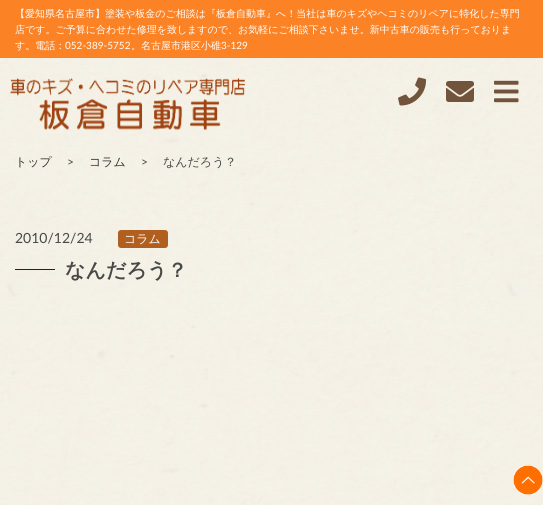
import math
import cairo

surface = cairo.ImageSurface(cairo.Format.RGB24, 543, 505)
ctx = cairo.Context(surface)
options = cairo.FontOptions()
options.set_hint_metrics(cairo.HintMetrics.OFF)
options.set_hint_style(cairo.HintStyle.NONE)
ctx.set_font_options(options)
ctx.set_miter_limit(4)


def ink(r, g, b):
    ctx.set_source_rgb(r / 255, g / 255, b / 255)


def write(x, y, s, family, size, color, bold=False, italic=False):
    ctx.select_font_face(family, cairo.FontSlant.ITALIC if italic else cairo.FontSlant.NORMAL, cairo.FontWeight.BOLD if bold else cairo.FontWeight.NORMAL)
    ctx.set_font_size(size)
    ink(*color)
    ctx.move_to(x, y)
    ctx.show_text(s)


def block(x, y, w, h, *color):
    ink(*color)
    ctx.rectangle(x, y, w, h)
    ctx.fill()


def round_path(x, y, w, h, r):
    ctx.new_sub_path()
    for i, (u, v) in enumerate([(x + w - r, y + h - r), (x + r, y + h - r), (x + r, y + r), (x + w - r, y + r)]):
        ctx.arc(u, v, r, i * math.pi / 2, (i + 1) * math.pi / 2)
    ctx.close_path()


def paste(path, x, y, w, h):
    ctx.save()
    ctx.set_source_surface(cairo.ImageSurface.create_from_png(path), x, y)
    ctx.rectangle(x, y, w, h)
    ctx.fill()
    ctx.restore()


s1 = dict(family="WenQuanYi Zen Hei Medium", size=10, color=(255, 255, 255))
s2 = dict(family="Lato", size=10, color=(255, 255, 255))
s3 = dict(family="WenQuanYi Zen Hei Medium", size=12, color=(51, 51, 51))
s4 = dict(family="Lato", size=12, color=(72, 72, 72))
s5 = dict(family="WenQuanYi Zen Hei Medium", size=12, color=(72, 72, 72))
s6 = dict(family="Lato", size=14, color=(72, 72, 72))
s7 = dict(family="WenQuanYi Zen Hei Medium", size=12, color=(255, 255, 255))
s8 = dict(family="WenQuanYi Zen Hei", size=20, color=(72, 72, 72), bold=True)

ink(255, 255, 255)
ctx.paint()
paste("pic1.png", 0, 58, 543, 447)
block(0, 0, 543, 58, 251, 131, 38)
write(15, 17, "【愛知県名古屋市】塗装や板金のご相談は『板倉自動車』へ！当社は車のキズやヘコミのリペアに特化した専門", **s1)
write(15, 33, "店です。ご予算に合わせた修理を致しますので、お気軽にご相談下さいませ。新中古車の販売も行っておりま", **s1)
write(15, 49, "す。電話：", **s1)
write(65, 49, "052-389-5752", **s2)
write(131, 49, "。名古屋市港区小碓", **s1)
write(221, 49, "3-129", **s2)
paste("pic2.png", 10, 78, 235, 52)
paste("pic3.png", 398, 77, 29, 29)
paste("pic4.png", 446, 81, 28, 21)
paste("pic5.png", 494, 80, 25, 23)
write(15, 166, "トップ", **s3)
write(67, 166, ">", **s4)
write(89, 166, "コラム", **s3)
write(141, 166, ">", **s4)
write(163, 166, "なんだろう？", **s5)
write(15, 243, "2010/12/24", **s6)
ink(176, 95, 30)
round_path(118, 230, 50, 18, 3)
ctx.fill()
write(124, 243, "コラム", **s7)
block(15, 269, 40, 1, 34, 34, 34)
write(65, 277, "なんだろう？", **s8)
paste("pic6.png", 513, 465, 30, 30)
surface.write_to_png("screenshot.png")
